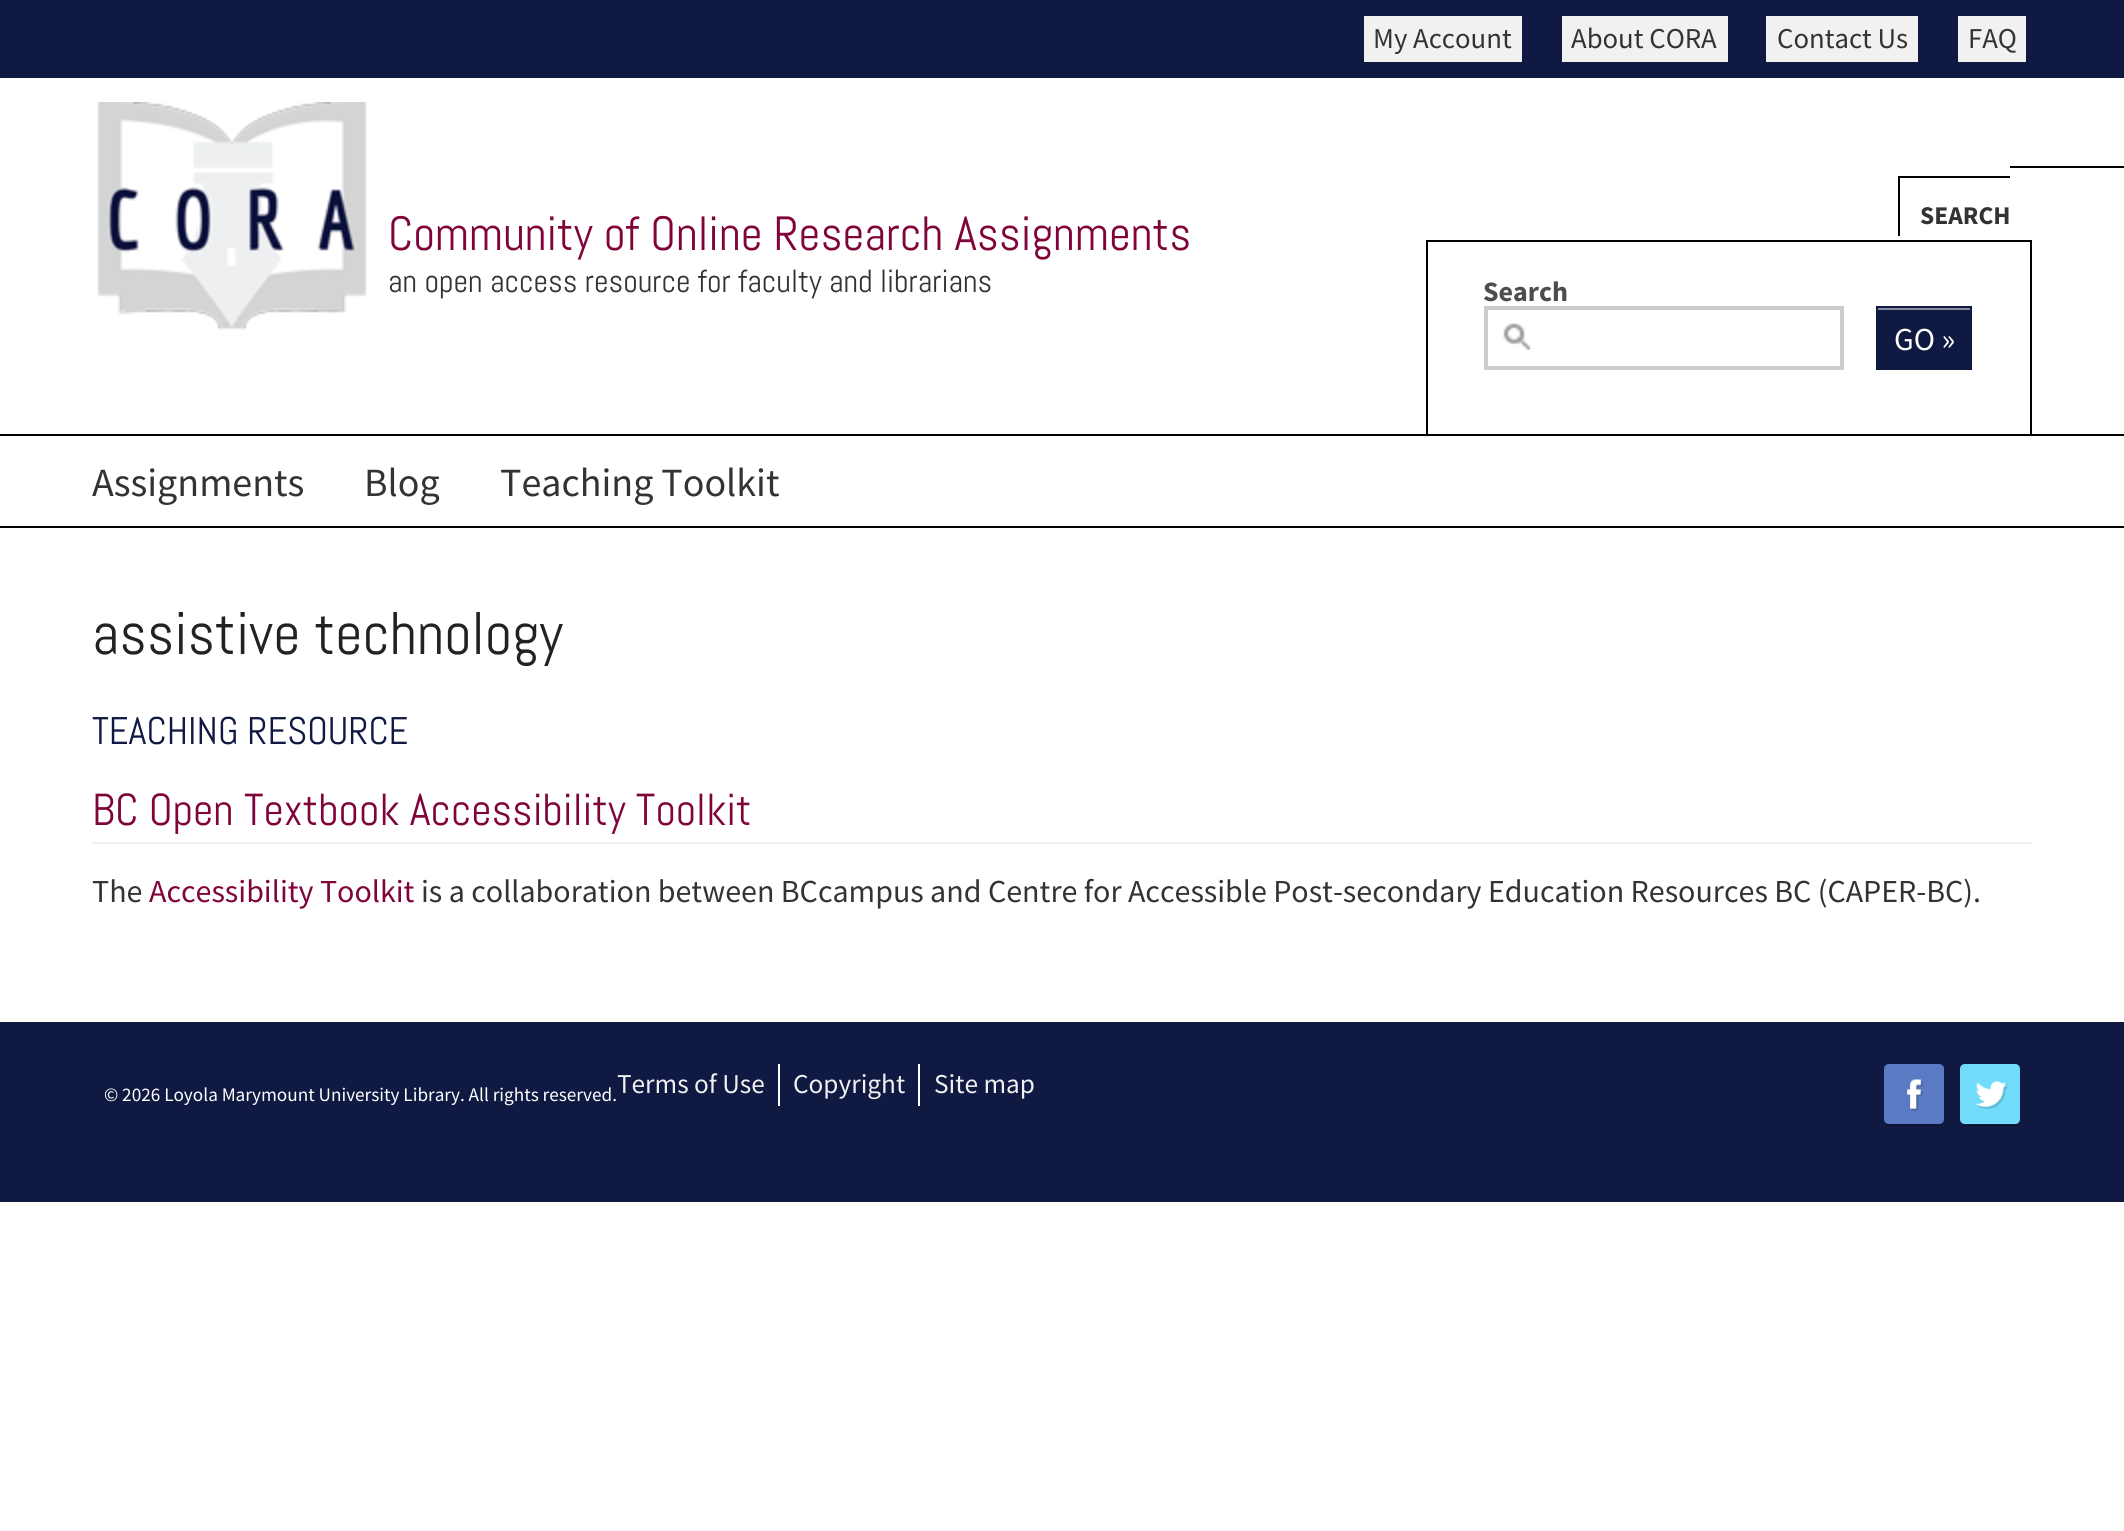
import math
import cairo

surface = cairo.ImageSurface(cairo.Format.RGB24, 2124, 1531)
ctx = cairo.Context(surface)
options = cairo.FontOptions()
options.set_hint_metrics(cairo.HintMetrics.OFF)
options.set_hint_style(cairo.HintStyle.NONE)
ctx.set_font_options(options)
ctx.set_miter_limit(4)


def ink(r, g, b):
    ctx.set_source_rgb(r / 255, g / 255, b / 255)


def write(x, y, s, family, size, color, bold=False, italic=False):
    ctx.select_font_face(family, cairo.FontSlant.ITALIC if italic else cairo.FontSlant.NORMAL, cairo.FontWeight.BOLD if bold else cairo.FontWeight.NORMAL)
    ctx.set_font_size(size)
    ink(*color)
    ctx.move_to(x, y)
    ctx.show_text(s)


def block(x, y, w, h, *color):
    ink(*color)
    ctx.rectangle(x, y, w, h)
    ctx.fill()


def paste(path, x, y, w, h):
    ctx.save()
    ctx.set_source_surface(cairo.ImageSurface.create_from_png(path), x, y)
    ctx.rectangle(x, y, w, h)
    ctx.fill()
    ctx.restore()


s1 = dict(family="Source Sans Pro", size=28.75, color=(51, 51, 51))
s2 = dict(family="Abel", size=48, color=(128, 4, 58))
s3 = dict(family="Abel", size=32, color=(51, 51, 51))
s4 = dict(family="Source Sans Pro", size=25.5, color=(51, 51, 51), bold=True)
s5 = dict(family="Source Sans Pro", size=28, color=(77, 77, 77), bold=True)
s6 = dict(family="Source Sans Pro", size=32, color=(255, 255, 255))
s7 = dict(family="Source Sans Pro", size=40, color=(51, 51, 51))
s8 = dict(family="Abel", size=60, color=(34, 34, 34))
s9 = dict(family="Abel", size=38.5, color=(16, 25, 66))
s10 = dict(family="Abel", size=44.75, color=(128, 4, 58))
s11 = dict(family="Source Sans Pro", size=32, color=(51, 51, 51))
s12 = dict(family="Source Sans Pro", size=32, color=(128, 4, 58))
s13 = dict(family="Source Sans Pro", size=19.2, color=(255, 255, 255))
s14 = dict(family="Source Sans Pro", size=27.25, color=(241, 241, 241))

ink(255, 255, 255)
ctx.paint()
block(0, 0, 2124, 78, 16, 25, 66)
block(1364, 16, 158, 46, 241, 241, 241)
write(1373, 48, "My Account", **s1)
block(1562, 16, 166, 46, 241, 241, 241)
write(1571, 48, "About CORA", **s1)
block(1766, 16, 152, 46, 241, 241, 241)
write(1777, 48, "Contact Us", **s1)
block(1958, 16, 68, 46, 241, 241, 241)
write(1968, 48, "FAQ", **s1)
paste("pic1.png", 97, 102, 270, 228)
write(388, 250, "Community of Online Research Assignments", **s2)
write(388, 292, "an open access resource for faculty and librarians", **s3)
write(1920, 224, "SEARCH", **s4)
block(1898, 176, 112, 2, 0, 0, 0)
block(1898, 176, 2, 60, 0, 0, 0)
block(2010, 166, 114, 2, 0, 0, 0)
block(1426, 240, 606, 2, 0, 0, 0)
block(2030, 240, 2, 194, 0, 0, 0)
block(1426, 240, 2, 194, 0, 0, 0)
write(1483, 301, "Search", **s5)
paste("pic2.png", 1503, 323, 28, 27)
ctx.rectangle(1486, 308, 356, 60)
ink(204, 204, 204)
ctx.set_line_width(4)
ctx.stroke()
block(1876, 306, 96, 64, 16, 25, 66)
block(1878, 308, 92, 2, 136, 140, 161)
write(1894, 350, "GO »", **s6)
block(0, 434, 2124, 2, 0, 0, 0)
block(0, 526, 2124, 2, 0, 0, 0)
write(92, 496, "Assignments", **s7)
write(364, 496, "Blog", **s7)
write(500, 496, "Teaching Toolkit", **s7)
write(92, 654, "assistive technology", **s8)
write(92, 744, "TEACHING RESOURCE", **s9)
block(92, 842, 1940, 2, 241, 241, 241)
write(92, 825, "BC Open Textbook Accessibility Toolkit", **s10)
write(92, 902, "The", **s11)
write(149, 902, "Accessibility Toolkit", **s12)
write(421, 902, "is a collaboration between BCcampus and Centre for Accessible Post-secondary Education Resources BC (CAPER-BC).", **s11)
block(0, 1022, 2124, 180, 16, 25, 66)
write(104, 1101, "© 2026 Loyola Marymount University Library. All rights reserved.", **s13)
block(778, 1064, 2, 42, 255, 255, 255)
write(617, 1093, "Terms of Use", **s14)
block(918, 1064, 2, 42, 255, 255, 255)
write(793, 1093, "Copyright", **s14)
write(934, 1093, "Site map", **s14)
paste("pic3.png", 1884, 1064, 60, 62)
paste("pic4.png", 1960, 1064, 60, 62)
surface.write_to_png("screenshot.png")
